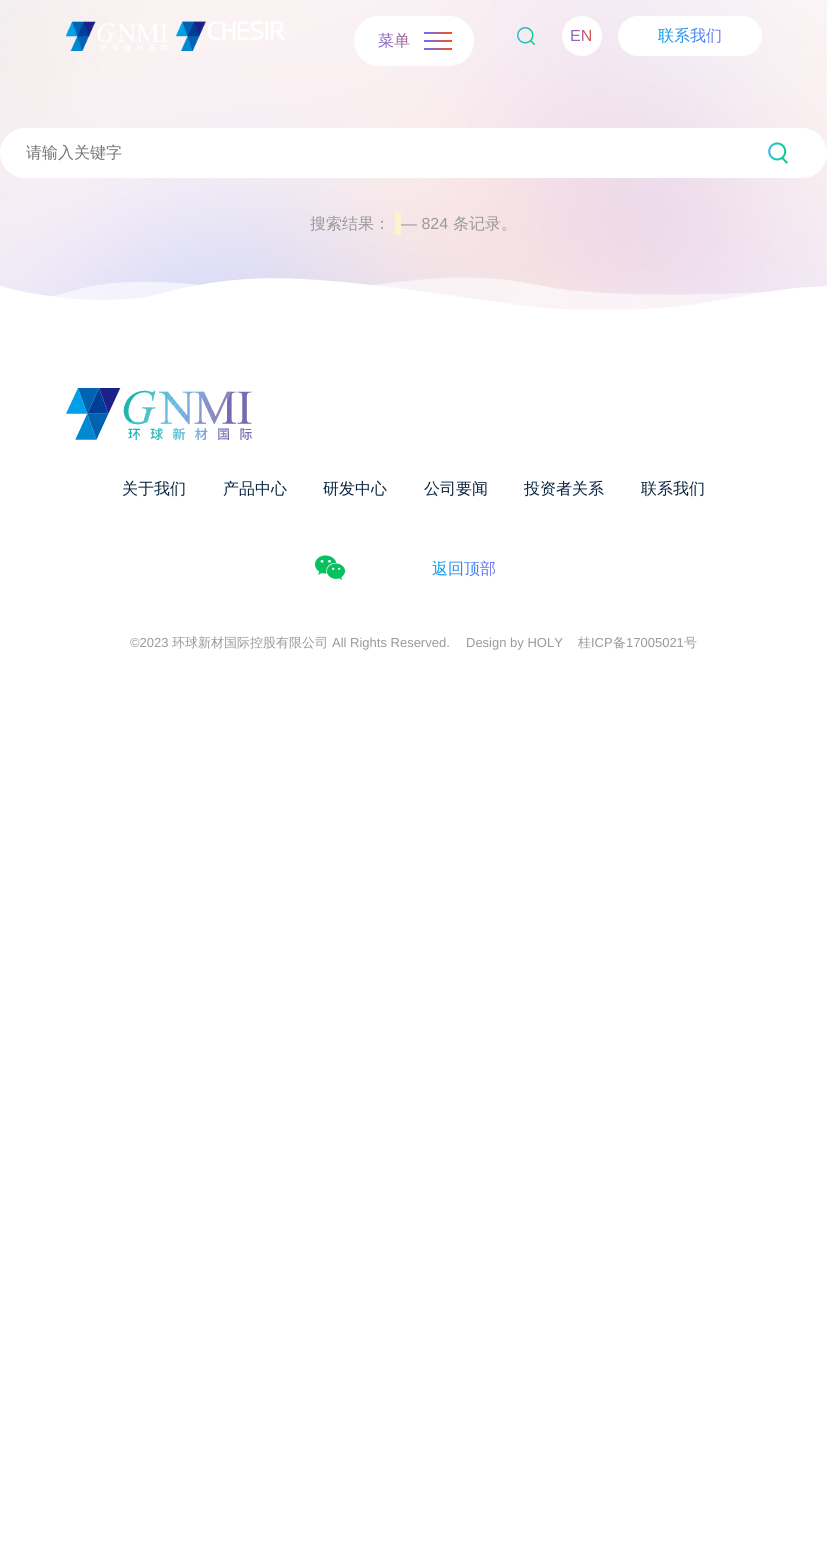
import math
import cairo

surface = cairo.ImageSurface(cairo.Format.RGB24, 827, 1567)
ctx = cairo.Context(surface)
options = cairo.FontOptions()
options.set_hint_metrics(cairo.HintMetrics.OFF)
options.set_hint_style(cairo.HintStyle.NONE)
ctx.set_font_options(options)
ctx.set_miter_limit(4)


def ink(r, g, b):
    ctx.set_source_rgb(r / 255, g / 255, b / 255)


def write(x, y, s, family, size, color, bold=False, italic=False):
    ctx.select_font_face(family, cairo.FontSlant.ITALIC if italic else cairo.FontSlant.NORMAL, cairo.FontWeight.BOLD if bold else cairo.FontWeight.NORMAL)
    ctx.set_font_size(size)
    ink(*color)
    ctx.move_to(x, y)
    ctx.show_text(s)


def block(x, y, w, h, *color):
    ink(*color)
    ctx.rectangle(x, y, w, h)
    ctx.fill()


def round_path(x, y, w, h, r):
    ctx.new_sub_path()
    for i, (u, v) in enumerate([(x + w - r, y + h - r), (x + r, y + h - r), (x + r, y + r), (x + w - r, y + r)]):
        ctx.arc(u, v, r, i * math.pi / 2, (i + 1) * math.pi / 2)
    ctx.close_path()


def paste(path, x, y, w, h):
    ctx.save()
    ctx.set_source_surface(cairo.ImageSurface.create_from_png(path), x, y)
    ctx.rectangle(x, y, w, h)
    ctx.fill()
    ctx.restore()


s1 = dict(family="WenQuanYi Zen Hei Medium", size=16, color=(117, 117, 117))
s2 = dict(family="WenQuanYi Zen Hei Medium", size=16, color=(153, 153, 153))
s3 = dict(family="Liberation Sans", size=16, color=(153, 153, 153))
s4 = dict(family="WenQuanYi Zen Hei Medium", size=16, color=(9, 36, 64))
s5 = dict(family="Liberation Sans", size=13, color=(153, 153, 153))
s6 = dict(family="WenQuanYi Zen Hei Medium", size=13, color=(153, 153, 153))

ink(255, 255, 255)
ctx.paint()
paste("pic1.png", 0, 0, 827, 314)
ink(255, 255, 255)
round_path(354, 16, 120, 50, 25)
ctx.fill()
ctx.select_font_face("WenQuanYi Zen Hei Medium")
ctx.set_font_size(16)
gradient = cairo.LinearGradient(354, 41, 474, 41)
gradient.add_color_stop_rgba(0, 0.384, 0.443, 1, 1)
gradient.add_color_stop_rgba(1, 1, 0.298, 0.075, 1)
ctx.set_source(gradient)
ctx.move_to(378, 46)
ctx.show_text("菜单")
gradient = cairo.LinearGradient(424, 33, 452, 33)
gradient.add_color_stop_rgba(0, 0.384, 0.443, 1, 1)
gradient.add_color_stop_rgba(1, 1, 0.298, 0.075, 1)
ctx.set_source(gradient)
ctx.rectangle(424, 32, 28, 2)
ctx.fill()
gradient = cairo.LinearGradient(424, 41, 452, 41)
gradient.add_color_stop_rgba(0, 0.384, 0.443, 1, 1)
gradient.add_color_stop_rgba(1, 1, 0.298, 0.075, 1)
ctx.set_source(gradient)
ctx.rectangle(424, 40, 28, 2)
ctx.fill()
gradient = cairo.LinearGradient(424, 49, 452, 49)
gradient.add_color_stop_rgba(0, 0.384, 0.443, 1, 1)
gradient.add_color_stop_rgba(1, 1, 0.298, 0.075, 1)
ctx.set_source(gradient)
ctx.rectangle(424, 48, 28, 2)
ctx.fill()
paste("pic2.png", 66, 21, 219, 30)
paste("pic3.png", 517, 27, 18, 18)
ink(255, 255, 255)
ctx.arc(582, 36, 20, 0, 2 * math.pi)
ctx.fill()
ctx.select_font_face("Liberation Sans")
gradient = cairo.LinearGradient(562, 36, 602, 36)
gradient.add_color_stop_rgba(0, 0.384, 0.443, 1, 1)
gradient.add_color_stop_rgba(1, 1, 0.298, 0.075, 1)
ctx.set_source(gradient)
ctx.move_to(570, 41)
ctx.show_text("EN")
ink(255, 255, 255)
round_path(618, 16, 144, 40, 20)
ctx.fill()
ctx.select_font_face("WenQuanYi Zen Hei Medium")
gradient = cairo.LinearGradient(658, 36, 722, 36)
gradient.add_color_stop_rgba(0, 0, 0.627, 0.914, 1)
gradient.add_color_stop_rgba(1, 0.435, 0.451, 0.973, 1)
ctx.set_source(gradient)
ctx.move_to(658, 41)
ctx.show_text("联系我们")
ink(255, 255, 255)
round_path(0, 128, 827, 50, 25)
ctx.fill()
write(26, 158, "请输入关键字", **s1)
paste("pic4.png", 768, 142, 20, 22)
write(310, 229, "搜索结果：", **s2)
block(395, 212, 6, 23, 255, 243, 205)
write(401, 229, "— 824", **s3)
write(453, 229, "条记录。", **s2)
paste("pic5.png", 0, 277, 827, 37)
paste("pic6.png", 66, 388, 186, 52)
write(122, 494, "关于我们", **s4)
write(223, 494, "产品中心", **s4)
write(323, 494, "研发中心", **s4)
write(424, 494, "公司要闻", **s4)
write(524, 494, "投资者关系", **s4)
write(641, 494, "联系我们", **s4)
paste("pic7.png", 315, 555, 30, 25)
gradient = cairo.LinearGradient(432, 569, 496, 569)
gradient.add_color_stop_rgba(0, 0, 0.627, 0.914, 1)
gradient.add_color_stop_rgba(1, 0.435, 0.451, 0.973, 1)
ctx.set_source(gradient)
ctx.move_to(432, 574)
ctx.show_text("返回顶部")
write(130, 647, "©2023", **s5)
write(172, 647, "环球新材国际控股有限公司", **s6)
write(332, 647, "All Rights Reserved.", **s5)
write(466, 647, "Design by HOLY", **s5)
write(578, 647, "桂", **s6)
write(591, 647, "ICP", **s5)
write(613, 647, "备", **s6)
write(626, 647, "17005021", **s5)
write(684, 647, "号", **s6)
surface.write_to_png("screenshot.png")
